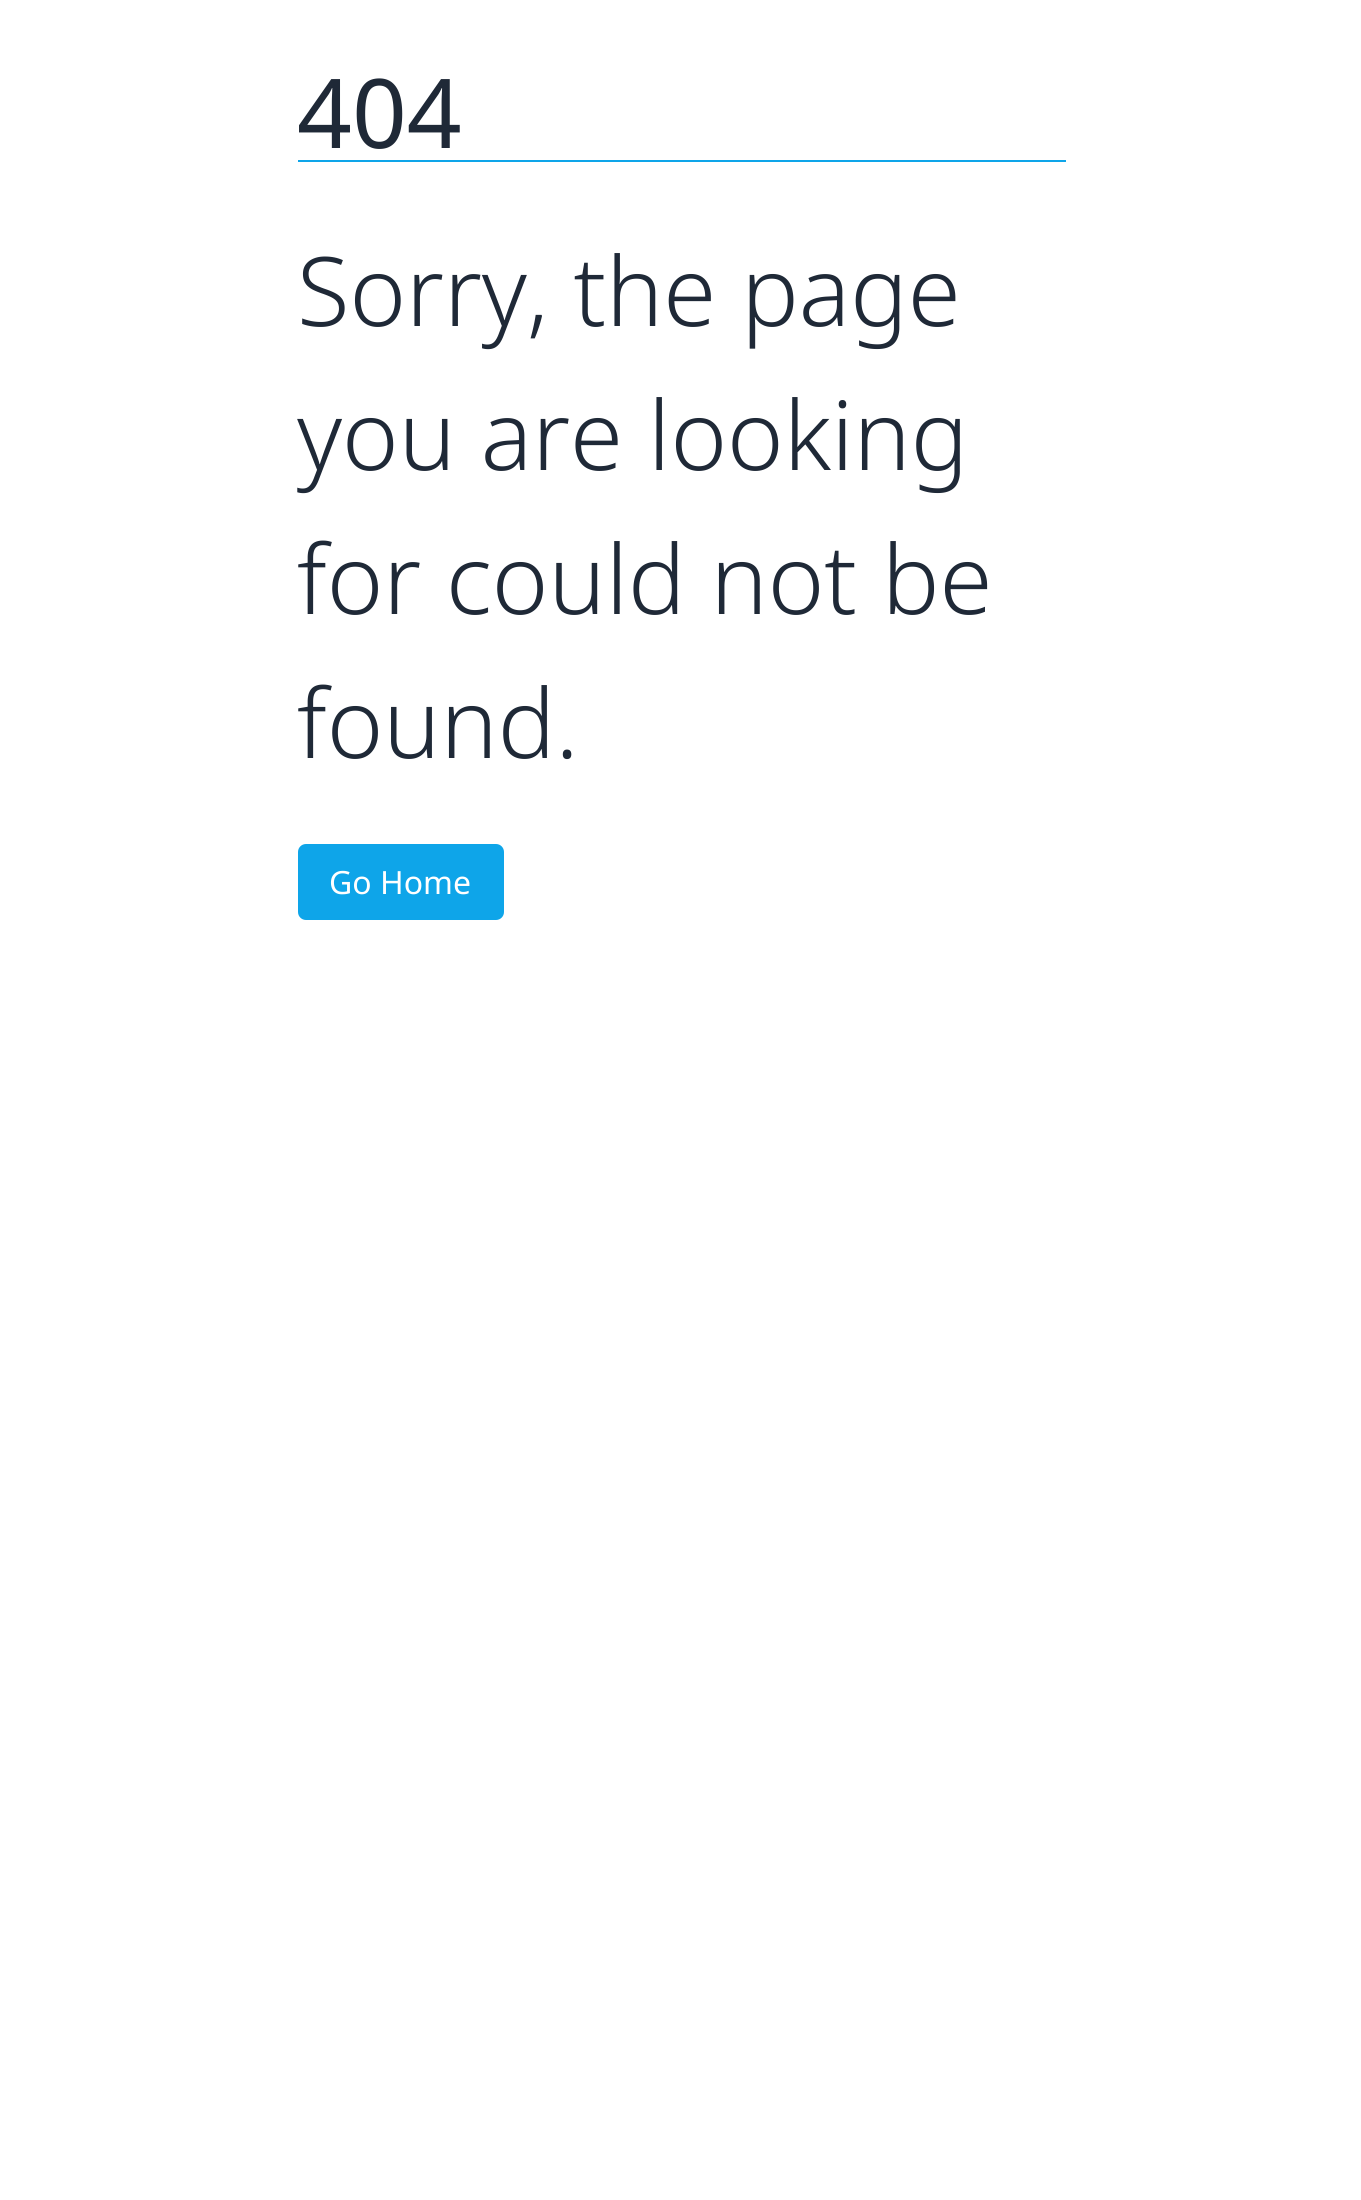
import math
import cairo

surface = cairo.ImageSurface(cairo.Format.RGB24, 1361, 2200)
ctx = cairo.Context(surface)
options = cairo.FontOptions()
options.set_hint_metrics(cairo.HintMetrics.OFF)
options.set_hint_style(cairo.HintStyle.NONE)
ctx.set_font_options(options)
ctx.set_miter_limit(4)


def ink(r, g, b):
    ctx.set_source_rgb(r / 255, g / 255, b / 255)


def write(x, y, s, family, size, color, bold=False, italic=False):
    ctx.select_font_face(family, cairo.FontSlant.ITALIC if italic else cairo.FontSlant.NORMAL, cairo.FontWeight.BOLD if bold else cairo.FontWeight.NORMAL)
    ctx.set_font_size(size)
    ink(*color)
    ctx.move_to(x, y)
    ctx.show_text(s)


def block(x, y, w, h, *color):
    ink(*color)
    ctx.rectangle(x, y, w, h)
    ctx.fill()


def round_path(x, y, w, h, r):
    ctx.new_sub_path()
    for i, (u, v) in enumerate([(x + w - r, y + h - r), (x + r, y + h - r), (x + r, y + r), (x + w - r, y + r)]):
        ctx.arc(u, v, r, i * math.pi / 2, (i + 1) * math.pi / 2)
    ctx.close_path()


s1 = dict(family="Noto Sans", size=96, color=(31, 41, 55))
s2 = dict(family="Noto Sans Light", size=96, color=(31, 41, 55))
s3 = dict(family="Noto Sans", size=32, color=(255, 255, 255))

ink(255, 255, 255)
ctx.paint()
block(298, 160, 768, 2, 14, 165, 233)
write(297, 148, "404", **s1)
write(297, 326, "Sorry, the page", **s2)
write(297, 470, "you are looking", **s2)
write(297, 614, "for could not be", **s2)
write(297, 758, "found.", **s2)
ink(14, 165, 233)
round_path(298, 844, 206, 76, 8)
ctx.fill()
write(329, 894, "Go Home", **s3)
surface.write_to_png("screenshot.png")
